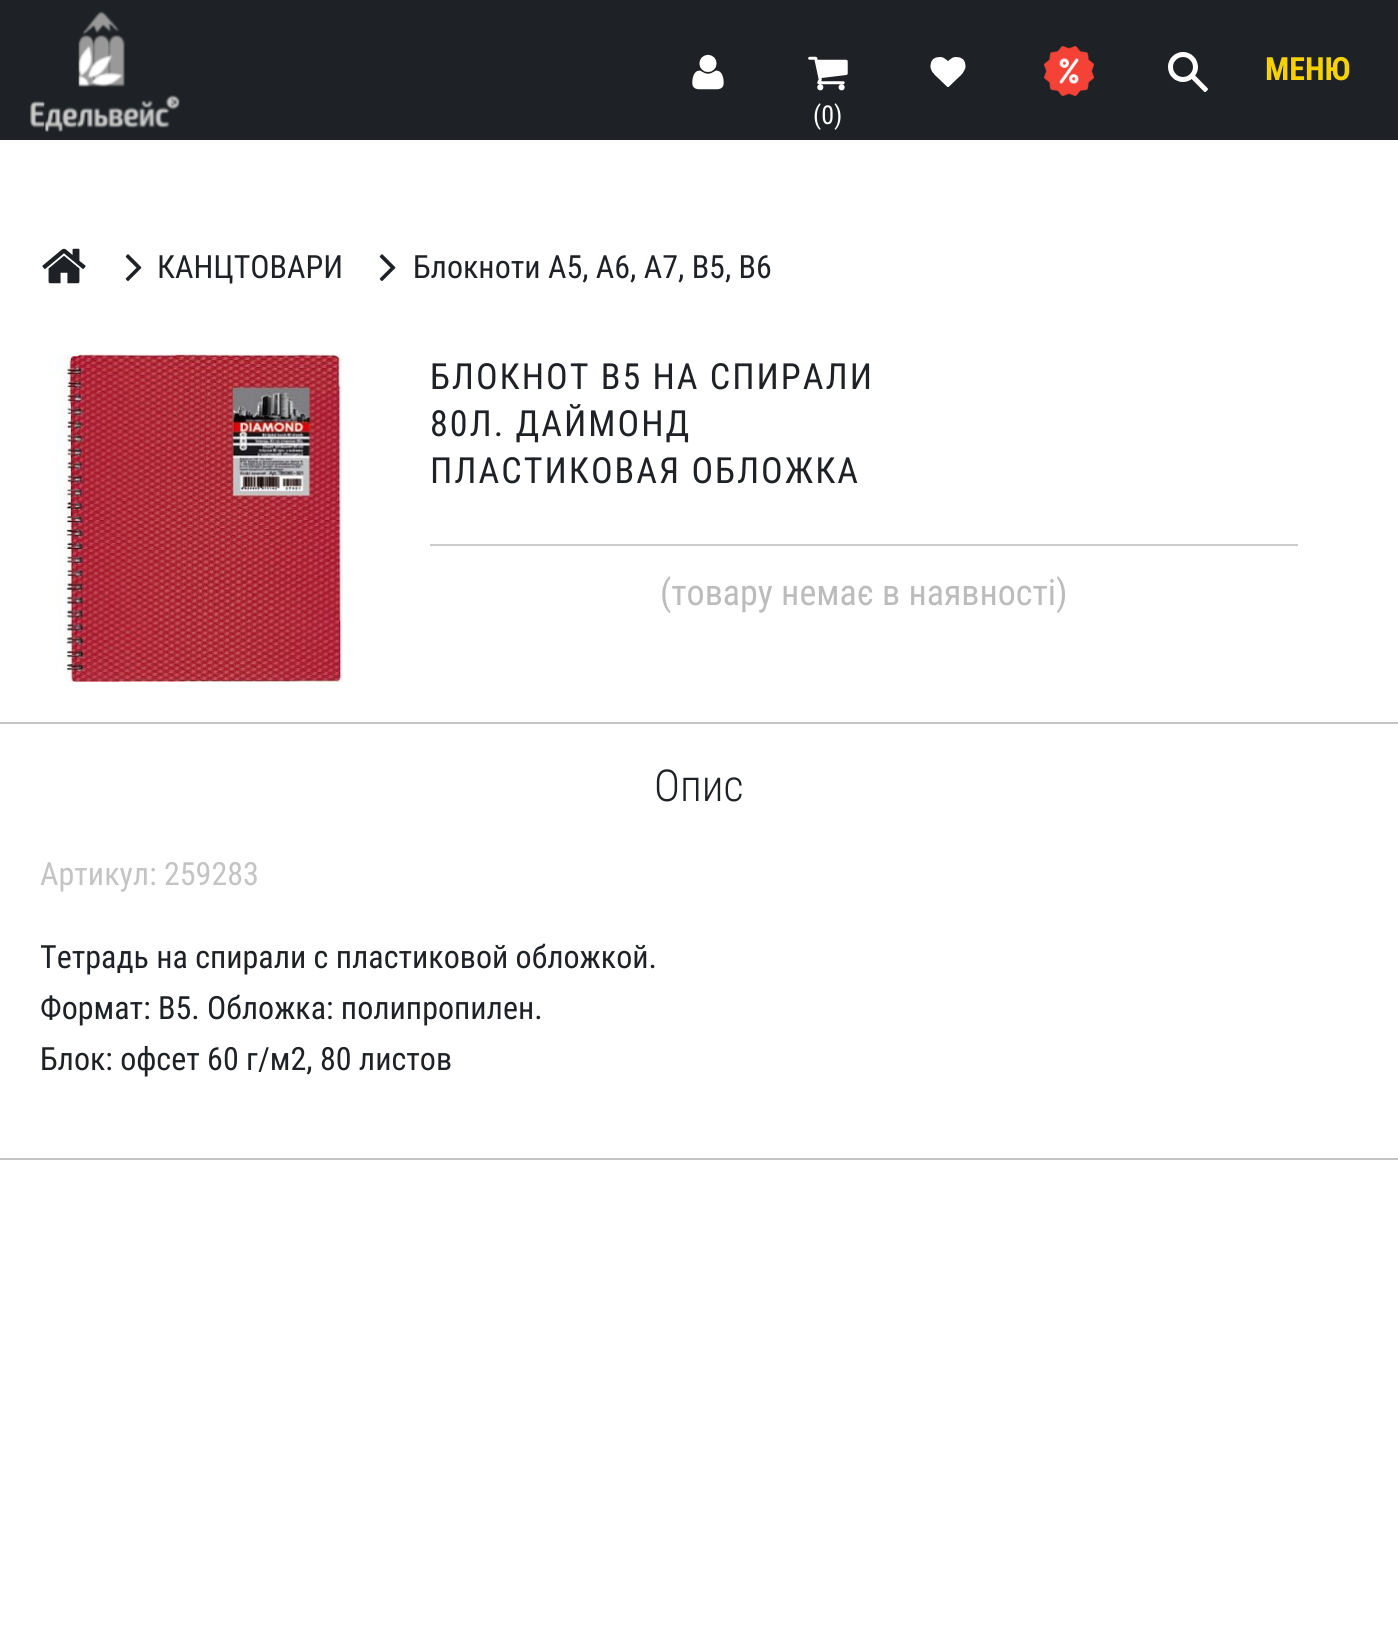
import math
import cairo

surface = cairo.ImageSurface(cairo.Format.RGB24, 1398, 1626)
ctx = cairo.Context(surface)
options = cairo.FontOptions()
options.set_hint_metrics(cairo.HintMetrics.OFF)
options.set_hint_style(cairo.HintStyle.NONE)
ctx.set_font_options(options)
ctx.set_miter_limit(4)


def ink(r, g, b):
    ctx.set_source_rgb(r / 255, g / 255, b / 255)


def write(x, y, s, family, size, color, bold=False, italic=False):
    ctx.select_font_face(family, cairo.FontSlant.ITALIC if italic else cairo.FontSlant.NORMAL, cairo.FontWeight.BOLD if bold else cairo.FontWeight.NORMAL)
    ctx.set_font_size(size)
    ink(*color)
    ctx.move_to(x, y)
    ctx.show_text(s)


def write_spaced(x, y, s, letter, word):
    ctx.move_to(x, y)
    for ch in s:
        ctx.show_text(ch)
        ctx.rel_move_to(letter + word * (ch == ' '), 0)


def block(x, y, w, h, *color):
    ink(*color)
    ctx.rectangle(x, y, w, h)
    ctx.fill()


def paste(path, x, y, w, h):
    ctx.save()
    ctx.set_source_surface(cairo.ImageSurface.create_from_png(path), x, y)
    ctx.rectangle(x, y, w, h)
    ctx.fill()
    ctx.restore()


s1 = dict(family="Roboto Condensed", size=32, color=(246, 210, 2), bold=True)
s2 = dict(family="Roboto Condensed", size=26, color=(255, 255, 255))
s3 = dict(family="Roboto Condensed", size=32, color=(30, 34, 38))
s4 = dict(family="Roboto Condensed", size=36, color=(188, 188, 188))
s5 = dict(family="Roboto Condensed Light", size=44, color=(30, 34, 38))
s6 = dict(family="Roboto Condensed", size=32, color=(196, 196, 197))

ink(255, 255, 255)
ctx.paint()
block(0, 0, 1398, 140, 30, 34, 38)
paste("pic1.png", 30, 11, 150, 121)
paste("pic2.png", 692, 54, 32, 36)
paste("pic3.png", 930, 57, 36, 30)
paste("pic4.png", 1044, 46, 50, 50)
paste("pic5.png", 1168, 52, 40, 40)
write(1265, 80, "МЕНЮ", **s1)
paste("pic6.png", 808, 56, 40, 35)
write(813, 124, "(0)", **s2)
paste("pic7.png", 42, 248, 44, 36)
paste("pic8.png", 125, 254, 17, 27)
write(157, 278, "КАНЦТОВАРИ", **s3)
paste("pic8.png", 379, 254, 17, 27)
write(413, 278, "Блокноти А5, А6, А7, В5, В6", **s3)
paste("pic9.png", 56, 354, 287, 328)
block(430, 544, 868, 2, 204, 204, 204)
ctx.set_font_size(36)
ink(30, 34, 38)
write_spaced(430, 389, "БЛОКНОТ В5 НА СПИРАЛИ", 2, 0)
write_spaced(430, 436, "80Л. ДАЙМОНД", 2, 0)
write_spaced(430, 483, "ПЛАСТИКОВАЯ ОБЛОЖКА", 2, 0)
write(660, 605, "(товару немає в наявності)", **s4)
block(0, 722, 1398, 2, 196, 196, 197)
block(0, 1158, 1398, 2, 196, 196, 197)
write(654, 801, "Опис", **s5)
write(40, 885, "Артикул: 259283", **s6)
write(40, 968, "Тетрадь на спирали с пластиковой обложкой.", **s3)
write(40, 1019, "Формат: В5. Обложка: полипропилен.", **s3)
write(40, 1070, "Блок: офсет 60 г/м2, 80 листов", **s3)
surface.write_to_png("screenshot.png")
